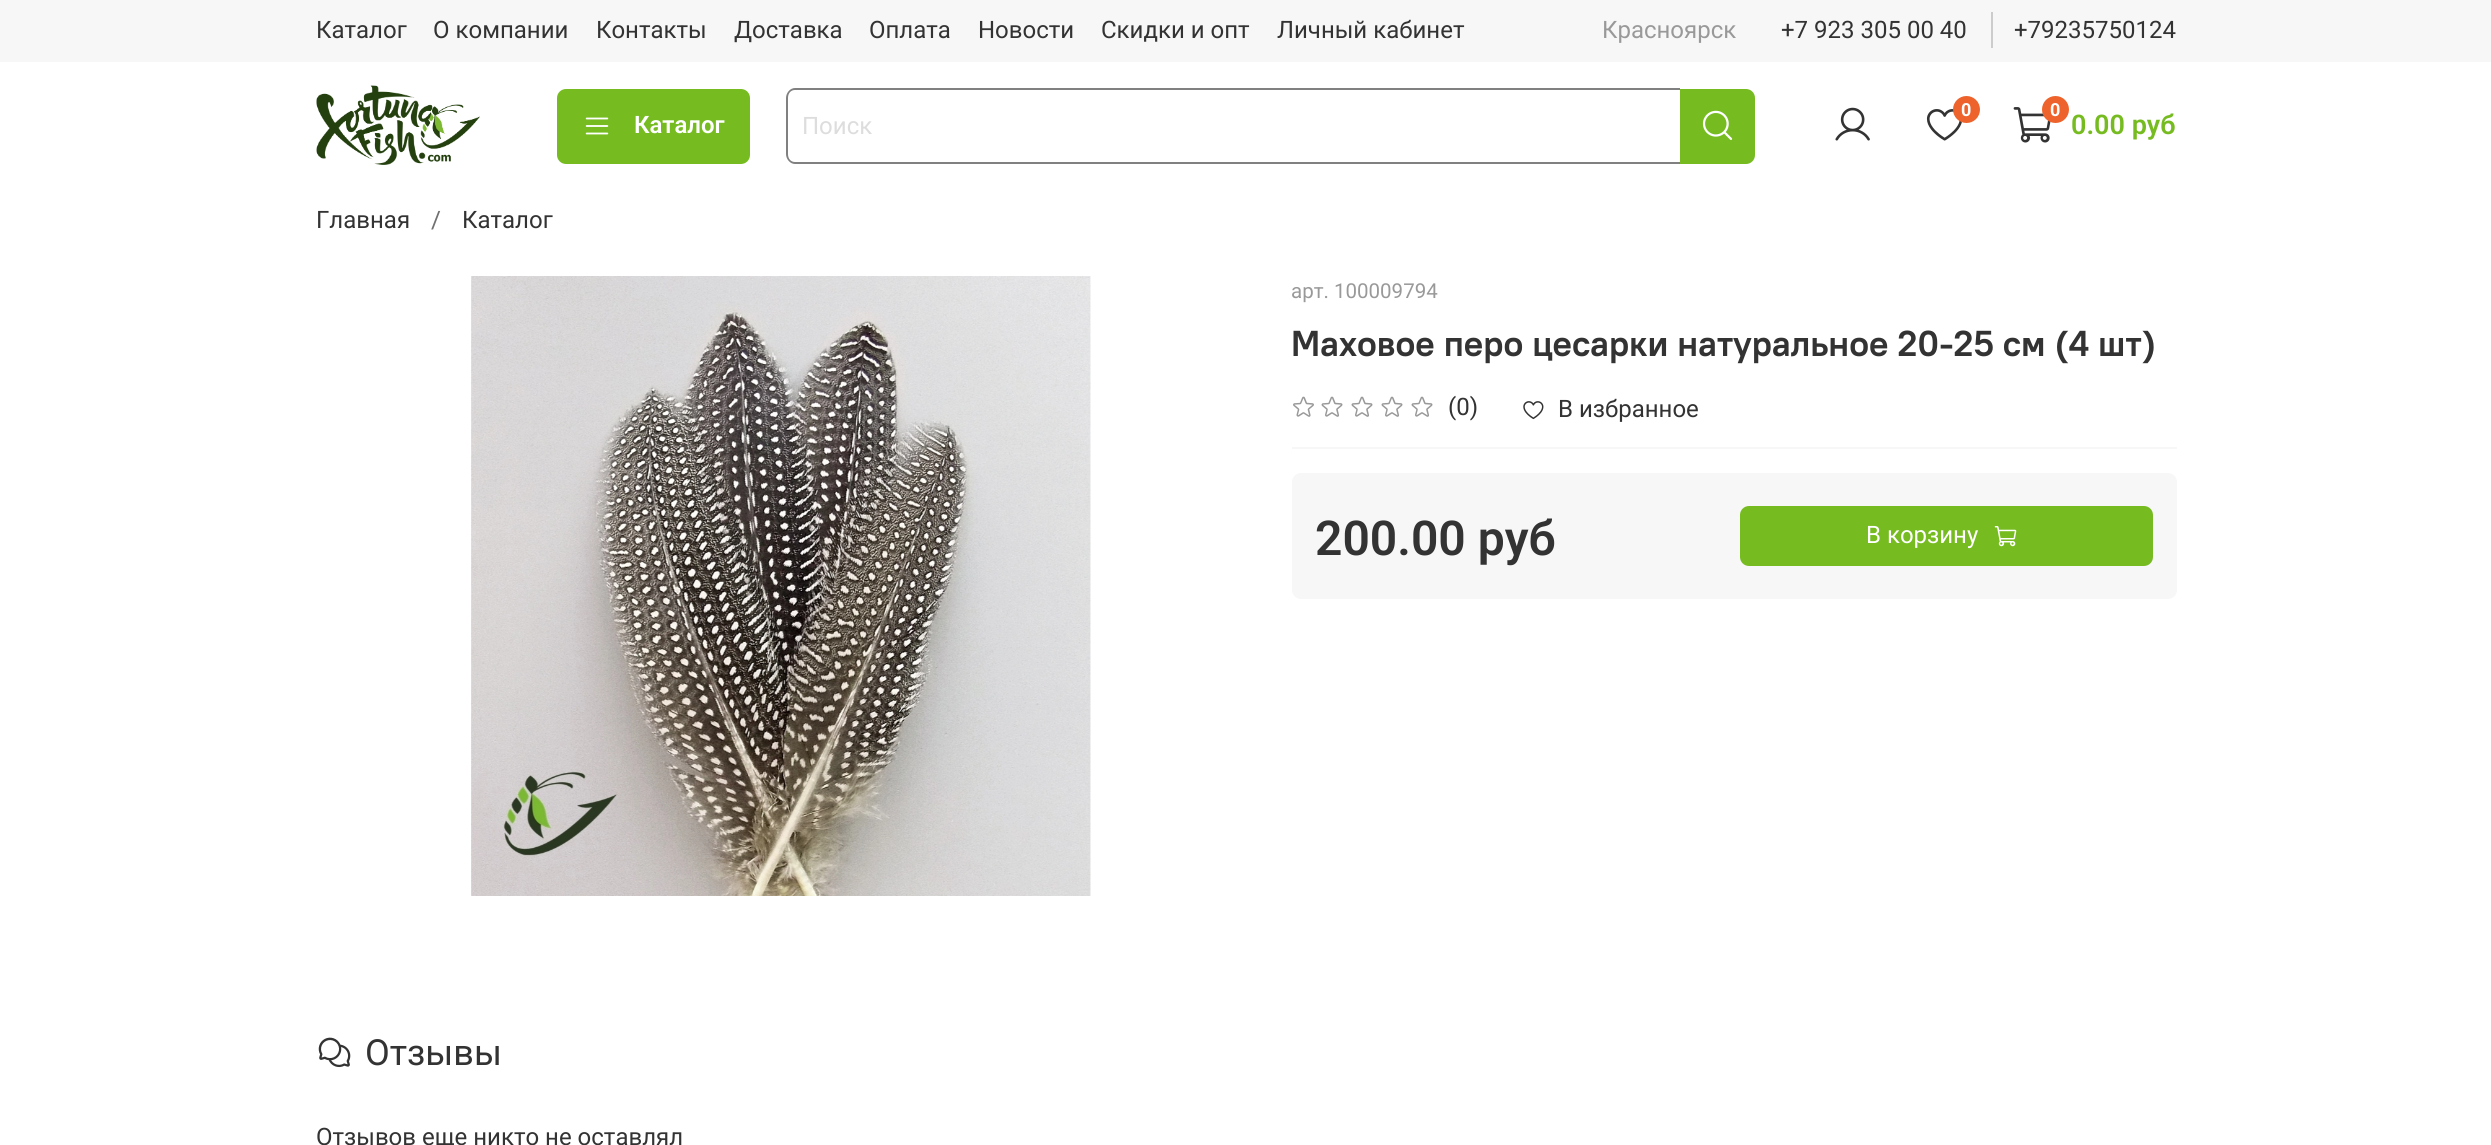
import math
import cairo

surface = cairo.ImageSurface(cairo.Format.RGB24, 2491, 1145)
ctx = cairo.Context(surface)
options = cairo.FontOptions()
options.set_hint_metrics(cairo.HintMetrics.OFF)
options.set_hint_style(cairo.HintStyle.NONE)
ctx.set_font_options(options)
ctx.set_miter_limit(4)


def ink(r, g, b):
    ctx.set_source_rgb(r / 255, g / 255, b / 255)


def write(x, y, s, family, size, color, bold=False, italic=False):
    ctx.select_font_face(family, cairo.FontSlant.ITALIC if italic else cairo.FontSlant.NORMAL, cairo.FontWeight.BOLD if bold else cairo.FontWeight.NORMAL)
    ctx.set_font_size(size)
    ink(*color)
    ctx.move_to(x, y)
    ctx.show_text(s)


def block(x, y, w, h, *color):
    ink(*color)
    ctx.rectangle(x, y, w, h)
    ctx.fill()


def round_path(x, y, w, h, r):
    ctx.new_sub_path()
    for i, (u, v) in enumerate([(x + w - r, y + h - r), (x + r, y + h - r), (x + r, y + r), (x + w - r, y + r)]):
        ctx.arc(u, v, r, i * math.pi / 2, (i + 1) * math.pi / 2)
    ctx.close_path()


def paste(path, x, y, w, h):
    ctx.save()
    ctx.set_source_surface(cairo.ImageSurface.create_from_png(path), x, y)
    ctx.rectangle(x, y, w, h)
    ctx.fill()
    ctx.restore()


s1 = dict(family="Roboto", size=24, color=(51, 51, 51))
s2 = dict(family="Roboto", size=24, color=(153, 153, 153))
s3 = dict(family="Roboto SemiBold", size=24, color=(255, 255, 255))
s4 = dict(family="Roboto", size=24, color=(221, 221, 221))
s5 = dict(family="Roboto", size=18, color=(255, 255, 255), bold=True)
s6 = dict(family="Roboto SemiBold", size=27, color=(118, 188, 33))
s7 = dict(family="Roboto", size=24, color=(112, 112, 112))
s8 = dict(family="Roboto", size=20.5, color=(153, 153, 153))
s9 = dict(family="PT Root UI", size=36, color=(51, 51, 51), bold=True)
s10 = dict(family="Roboto SemiBold", size=48, color=(51, 51, 51))
s11 = dict(family="Roboto", size=24, color=(255, 255, 255))
s12 = dict(family="Roboto", size=36, color=(51, 51, 51))

ink(255, 255, 255)
ctx.paint()
block(0, 0, 2491, 62, 247, 247, 247)
write(316, 38, "Каталог", **s1)
write(433, 38, "О компании", **s1)
write(596, 38, "Контакты", **s1)
write(734, 38, "Доставка", **s1)
write(869, 38, "Оплата", **s1)
write(978, 38, "Новости", **s1)
write(1101, 38, "Скидки и опт", **s1)
write(1277, 38, "Личный кабинет", **s1)
write(1602, 38, "Красноярск", **s2)
block(1991, 12, 2, 36, 204, 204, 204)
write(1781, 38, "+7 923 305 00 40", **s1)
write(2014, 38, "+79235750124", **s1)
paste("pic1.png", 316, 85, 164, 80)
ink(118, 188, 33)
round_path(557, 89, 193, 75, 9)
ctx.fill()
paste("pic2.png", 585, 117, 24, 18)
write(634, 133, "Каталог", **s3)
ink(128, 128, 128)
ctx.set_fill_rule(cairo.FillRule.EVEN_ODD)
ctx.new_path()
ctx.move_to(795, 88)
ctx.line_to(1680, 88)
ctx.line_to(1680, 164)
ctx.line_to(795, 164)
ctx.curve_to(790, 164, 786, 159, 786, 154)
ctx.line_to(786, 98)
ctx.curve_to(786, 93, 790, 88, 795, 88)
ctx.close_path()
ctx.move_to(795, 90)
ctx.line_to(1680, 90)
ctx.line_to(1680, 162)
ctx.line_to(795, 162)
ctx.curve_to(791, 162, 788, 159, 788, 154)
ctx.line_to(788, 98)
ctx.curve_to(788, 93, 791, 90, 795, 90)
ctx.close_path()
ctx.fill()
write(802, 134, "Поиск", **s4)
ink(118, 188, 33)
ctx.new_path()
ctx.move_to(1680, 89)
ctx.line_to(1746, 89)
ctx.curve_to(1751, 89, 1755, 93, 1755, 98)
ctx.line_to(1755, 155)
ctx.curve_to(1755, 160, 1751, 164, 1746, 164)
ctx.line_to(1680, 164)
ctx.close_path()
ctx.fill()
paste("pic3.png", 1702, 110, 31, 30)
paste("pic4.png", 1835, 107, 35, 34)
paste("pic5.png", 1926, 109, 36, 32)
ink(238, 99, 44)
ctx.arc(1966.5, 109.5, 13.5, 0, 2 * math.pi)
ctx.fill()
write(1961, 116, "0", **s5)
paste("pic6.png", 2013, 107, 38, 36)
ink(238, 99, 44)
ctx.arc(2055.5, 109.5, 13.5, 0, 2 * math.pi)
ctx.fill()
write(2050, 116, "0", **s5)
write(2071, 134, "0.00 руб", **s6)
write(316, 228, "Главная", **s1)
write(431, 228, "/", **s7)
write(462, 228, "Каталог", **s1)
paste("pic7.png", 471, 276, 620, 620)
write(1291, 298, "арт. 100009794", **s8)
write(1291, 356, "Маховое перо цесарки натуральное 20-25 см (4 шт)", **s9)
block(1292, 447, 885, 2, 247, 247, 247)
paste("pic8.png", 1293, 396, 21, 21)
paste("pic9.png", 1321, 396, 22, 21)
paste("pic9.png", 1351, 396, 22, 21)
paste("pic9.png", 1381, 396, 22, 21)
paste("pic9.png", 1411, 396, 22, 21)
write(1448, 415, "(0)", **s1)
paste("pic10.png", 1523, 401, 21, 19)
write(1558, 417, "В избранное", **s1)
ink(247, 247, 247)
round_path(1292, 473, 885, 126, 9)
ctx.fill()
write(1315, 555, "200.00 руб", **s10)
ink(118, 188, 33)
round_path(1740, 506, 413, 60, 9)
ctx.fill()
write(1866, 543, "В корзину", **s11)
paste("pic11.png", 1994, 526, 23, 21)
paste("pic12.png", 318, 1037, 33, 31)
write(365, 1065, "Отзывы", **s12)
write(316, 1145, "Отзывов еще никто не оставлял", **s1)
surface.write_to_png("screenshot.png")
